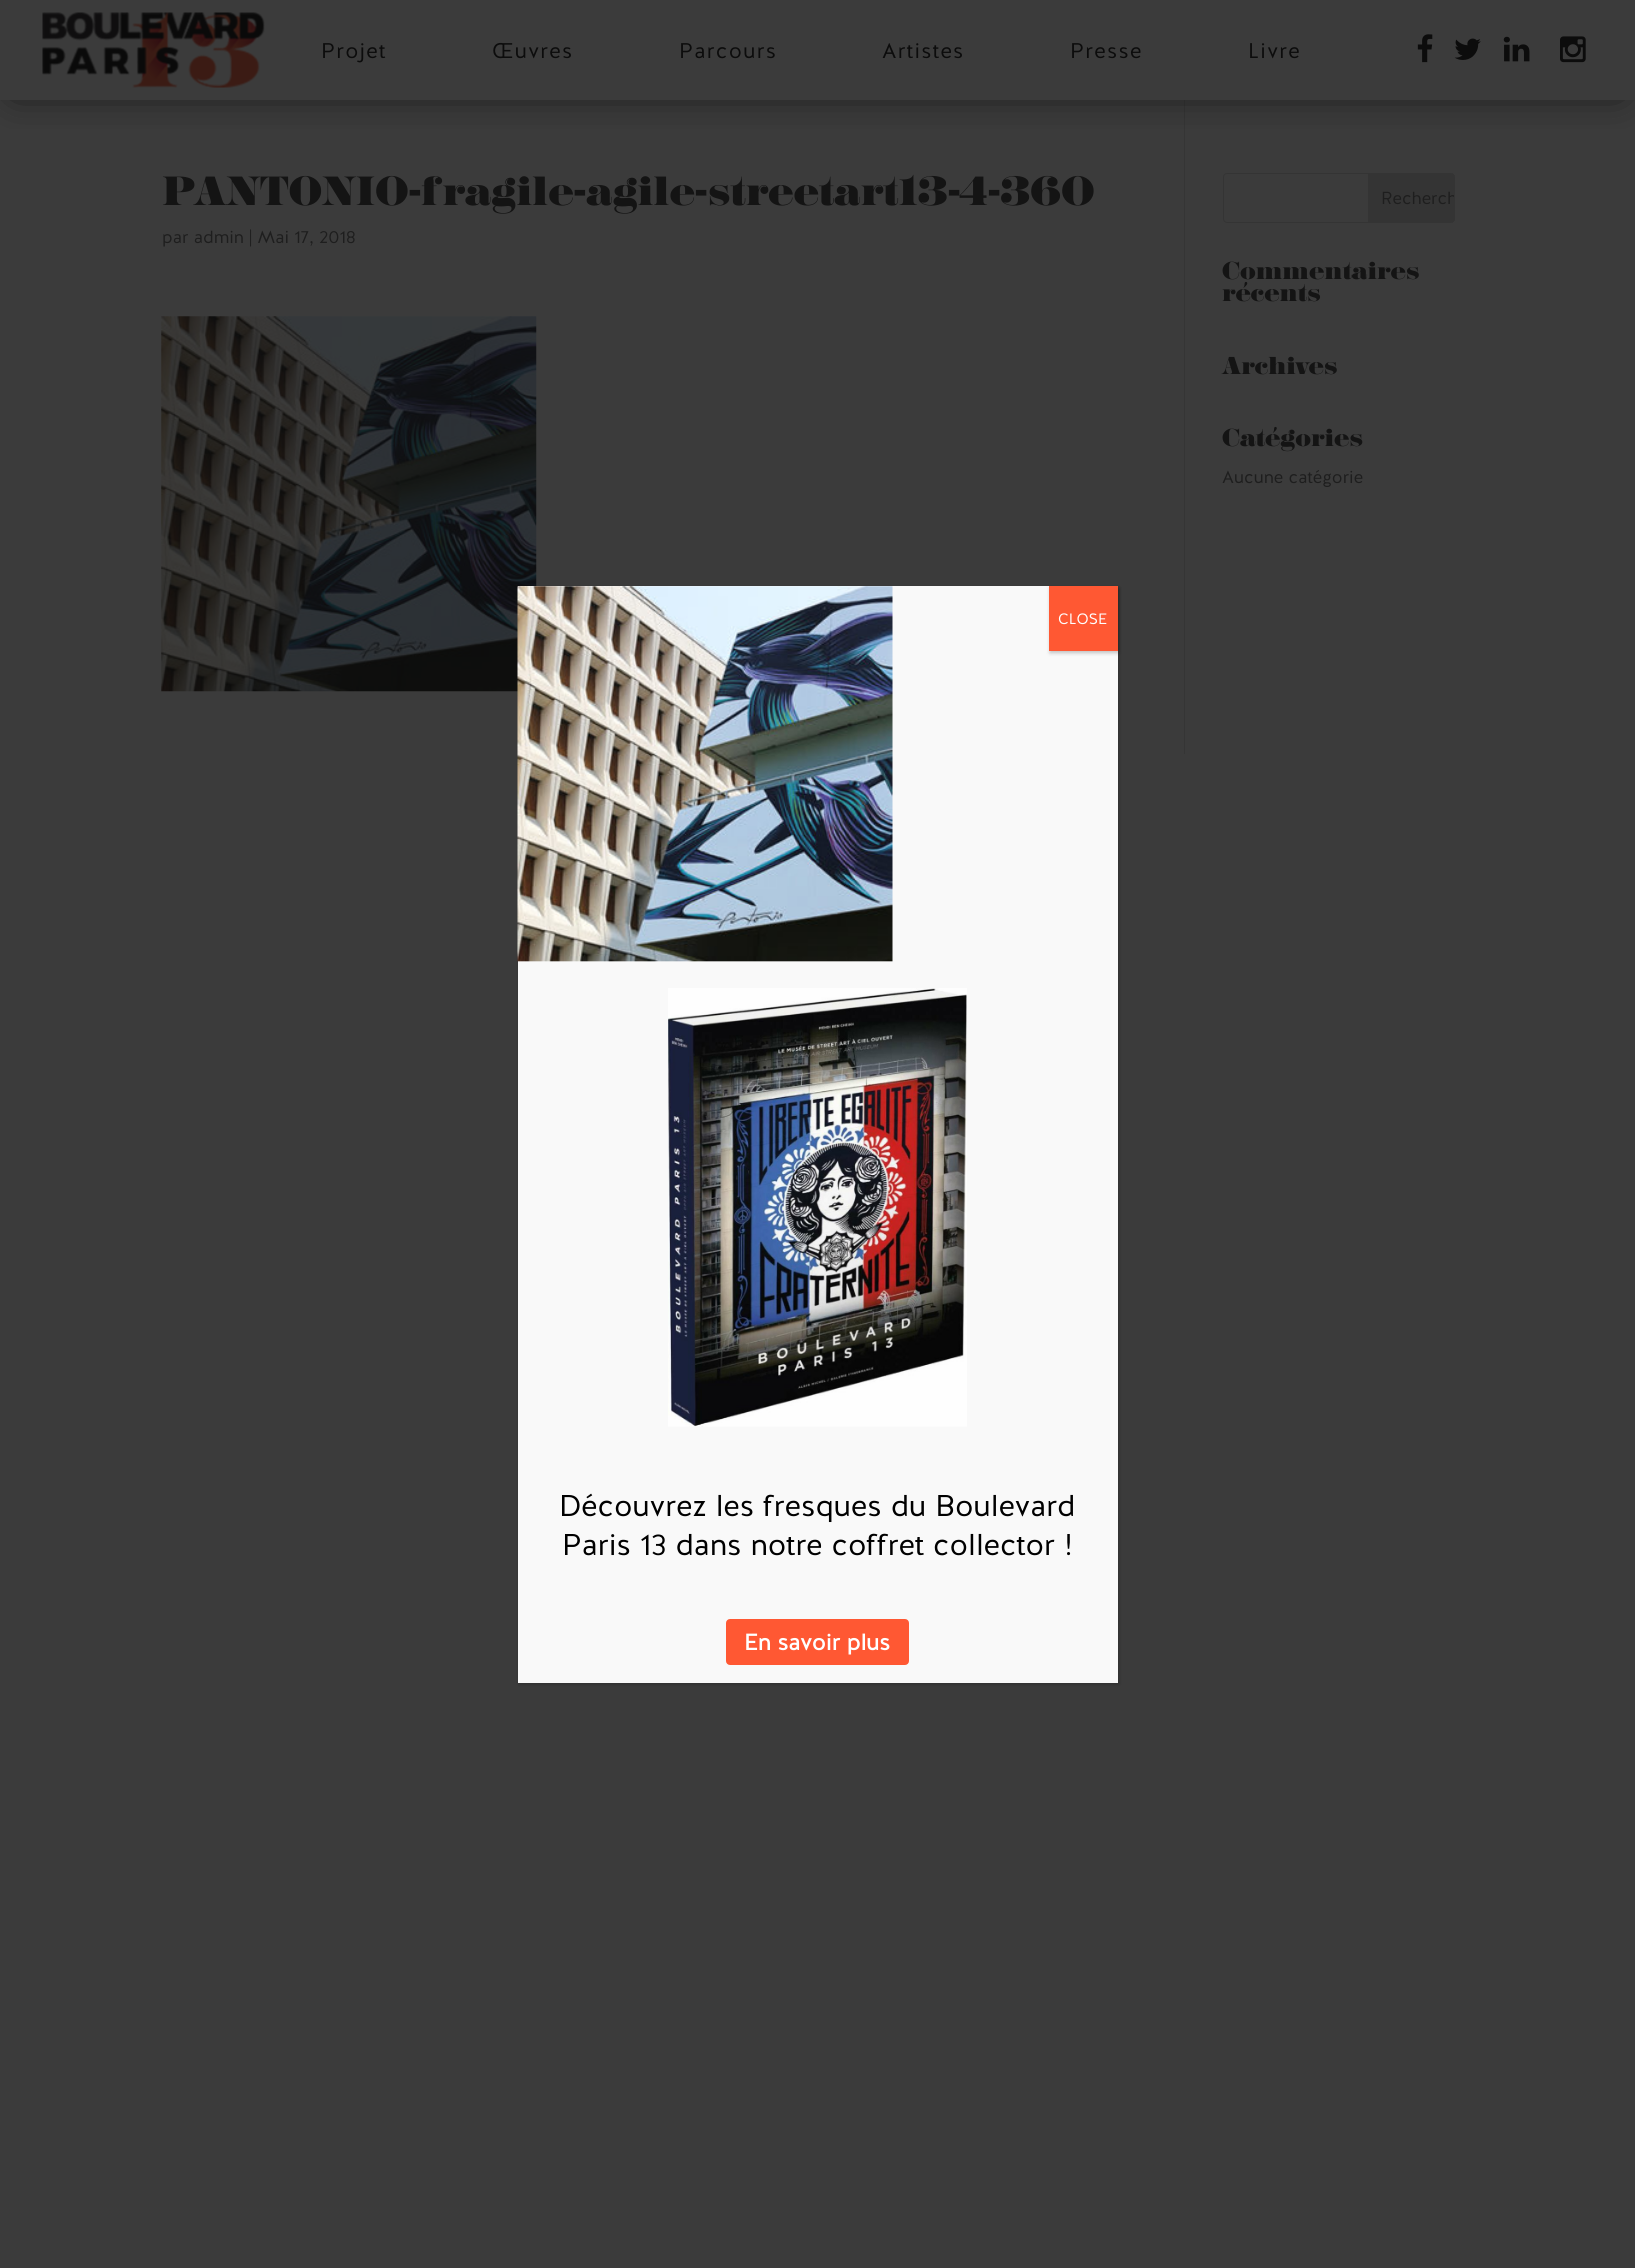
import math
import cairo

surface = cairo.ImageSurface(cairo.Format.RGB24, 1635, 2268)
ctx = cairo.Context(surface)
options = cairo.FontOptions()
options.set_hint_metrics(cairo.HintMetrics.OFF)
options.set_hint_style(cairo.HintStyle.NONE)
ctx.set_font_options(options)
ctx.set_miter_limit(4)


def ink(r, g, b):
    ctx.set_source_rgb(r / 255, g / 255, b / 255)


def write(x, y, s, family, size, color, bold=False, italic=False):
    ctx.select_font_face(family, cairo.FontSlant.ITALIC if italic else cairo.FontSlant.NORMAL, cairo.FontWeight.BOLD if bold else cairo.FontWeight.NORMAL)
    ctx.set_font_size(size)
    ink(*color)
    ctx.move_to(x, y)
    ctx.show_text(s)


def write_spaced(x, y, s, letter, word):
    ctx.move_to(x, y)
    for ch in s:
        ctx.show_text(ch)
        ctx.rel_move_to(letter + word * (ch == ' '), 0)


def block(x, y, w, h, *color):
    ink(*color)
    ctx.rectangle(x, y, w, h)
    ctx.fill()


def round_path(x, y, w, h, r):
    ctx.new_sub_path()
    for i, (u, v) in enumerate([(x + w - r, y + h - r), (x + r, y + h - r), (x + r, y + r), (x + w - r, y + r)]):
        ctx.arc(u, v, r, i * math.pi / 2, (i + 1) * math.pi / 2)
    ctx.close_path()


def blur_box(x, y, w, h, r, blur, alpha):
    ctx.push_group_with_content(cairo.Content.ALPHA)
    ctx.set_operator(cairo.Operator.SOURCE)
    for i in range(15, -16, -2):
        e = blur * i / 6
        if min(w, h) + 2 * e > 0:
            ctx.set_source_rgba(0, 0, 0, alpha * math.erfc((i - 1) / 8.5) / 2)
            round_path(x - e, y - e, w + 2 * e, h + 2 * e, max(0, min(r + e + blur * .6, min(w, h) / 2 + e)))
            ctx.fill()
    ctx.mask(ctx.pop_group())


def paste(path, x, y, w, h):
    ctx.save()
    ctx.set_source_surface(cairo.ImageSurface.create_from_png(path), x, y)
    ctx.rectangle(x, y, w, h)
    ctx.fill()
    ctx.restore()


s1 = dict(family="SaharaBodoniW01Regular", size=37.5, color=(20, 20, 20))
s2 = dict(family="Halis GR", size=17.5, color=(30, 30, 30))
s3 = dict(family="SaharaBodoniW01Regular", size=22.5, color=(20, 20, 20))
s4 = dict(family="Halis GR", size=15, color=(255, 255, 255))
s5 = dict(family="Halis GR", size=30, color=(0, 0, 0))
s6 = dict(family="Halis GR", size=22.5, color=(255, 255, 255), bold=True)

ink(59, 59, 59)
ctx.paint()
block(1184, 100, 1, 654, 53, 53, 53)
ctx.save()
ctx.rectangle(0, 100, 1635, 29)
ctx.clip()
ink(10, 10, 10)
blur_box(15, 20, 1605, 70, 0, 19, 1)
ctx.restore()
paste("pic1.png", 42, 12, 223, 76)
ctx.select_font_face("Halis GR")
ctx.set_font_size(21.25)
ink(12, 12, 12)
write_spaced(321, 58, "Projet", 1.25, 0)
write_spaced(492, 58, "Œuvres", 1.25, 0)
write_spaced(679, 58, "Parcours", 1.25, 0)
write_spaced(882, 58, "Artistes", 1.25, 0)
write_spaced(1070, 58, "Presse", 1.25, 0)
write_spaced(1248, 58, "Livre", 1.25, 0)
paste("pic2.png", 1417, 34, 16, 29)
paste("pic3.png", 1454, 38, 27, 22)
paste("pic4.png", 1503, 36, 27, 26)
paste("pic5.png", 1560, 36, 26, 27)
write(162, 205, "PANTONIO-fragile-agile-streetart13-4-360", **s1)
write(162, 243, "par admin | Mai 17, 2018", **s2)
paste("pic6.png", 161, 316, 376, 376)
round_path(1223.5, 173.5, 231, 49, 3.5)
ink(52, 52, 52)
ctx.set_line_width(1)
ctx.stroke()
ctx.new_path()
ctx.move_to(1368, 173)
ctx.line_to(1451, 173)
ctx.curve_to(1453, 173, 1455, 175, 1455, 177)
ctx.line_to(1455, 219)
ctx.curve_to(1455, 221, 1453, 223, 1451, 223)
ctx.line_to(1368, 223)
ctx.close_path()
ctx.fill()
ctx.save()
ctx.new_path()
ctx.move_to(1369, 174)
ctx.line_to(1451.5, 174)
ctx.curve_to(1453, 174, 1454, 175, 1454, 176.5)
ctx.line_to(1454, 218.5)
ctx.curve_to(1454, 220, 1453, 221, 1451.5, 221)
ctx.line_to(1369, 221)
ctx.close_path()
ctx.clip()
write(1381, 204, "Recherch", **s2)
ctx.restore()
write(1222, 279, "Commentaires", **s3)
write(1222, 301, "récents", **s3)
write(1222, 374, "Archives", **s3)
write(1222, 446, "Catégories", **s3)
write(1222, 483, "Aucune catégorie", **s2)
ink(2, 2, 2)
blur_box(519, 588, 600, 1096, 0, 2, 0.23)
block(518, 586, 600, 1097, 249, 249, 249)
ink(2, 2, 2)
blur_box(1050, 588, 69, 65, 0, 2, 0.23)
block(1049, 586, 69, 65, 255, 88, 51)
write(1058, 624, "CLOSE", **s4)
paste("pic7.png", 517, 586, 376, 376)
paste("pic8.png", 668, 988, 299, 439)
write(559, 1516, "Découvrez les fresques du Boulevard", **s5)
write(562, 1555, "Paris 13 dans notre coffret collector !", **s5)
ink(255, 88, 51)
round_path(727.5, 1620.5, 180, 43, 2.5)
ctx.fill_preserve()
ctx.set_line_width(3)
ctx.stroke()
write(744, 1650, "En savoir plus", **s6)
surface.write_to_png("screenshot.png")
